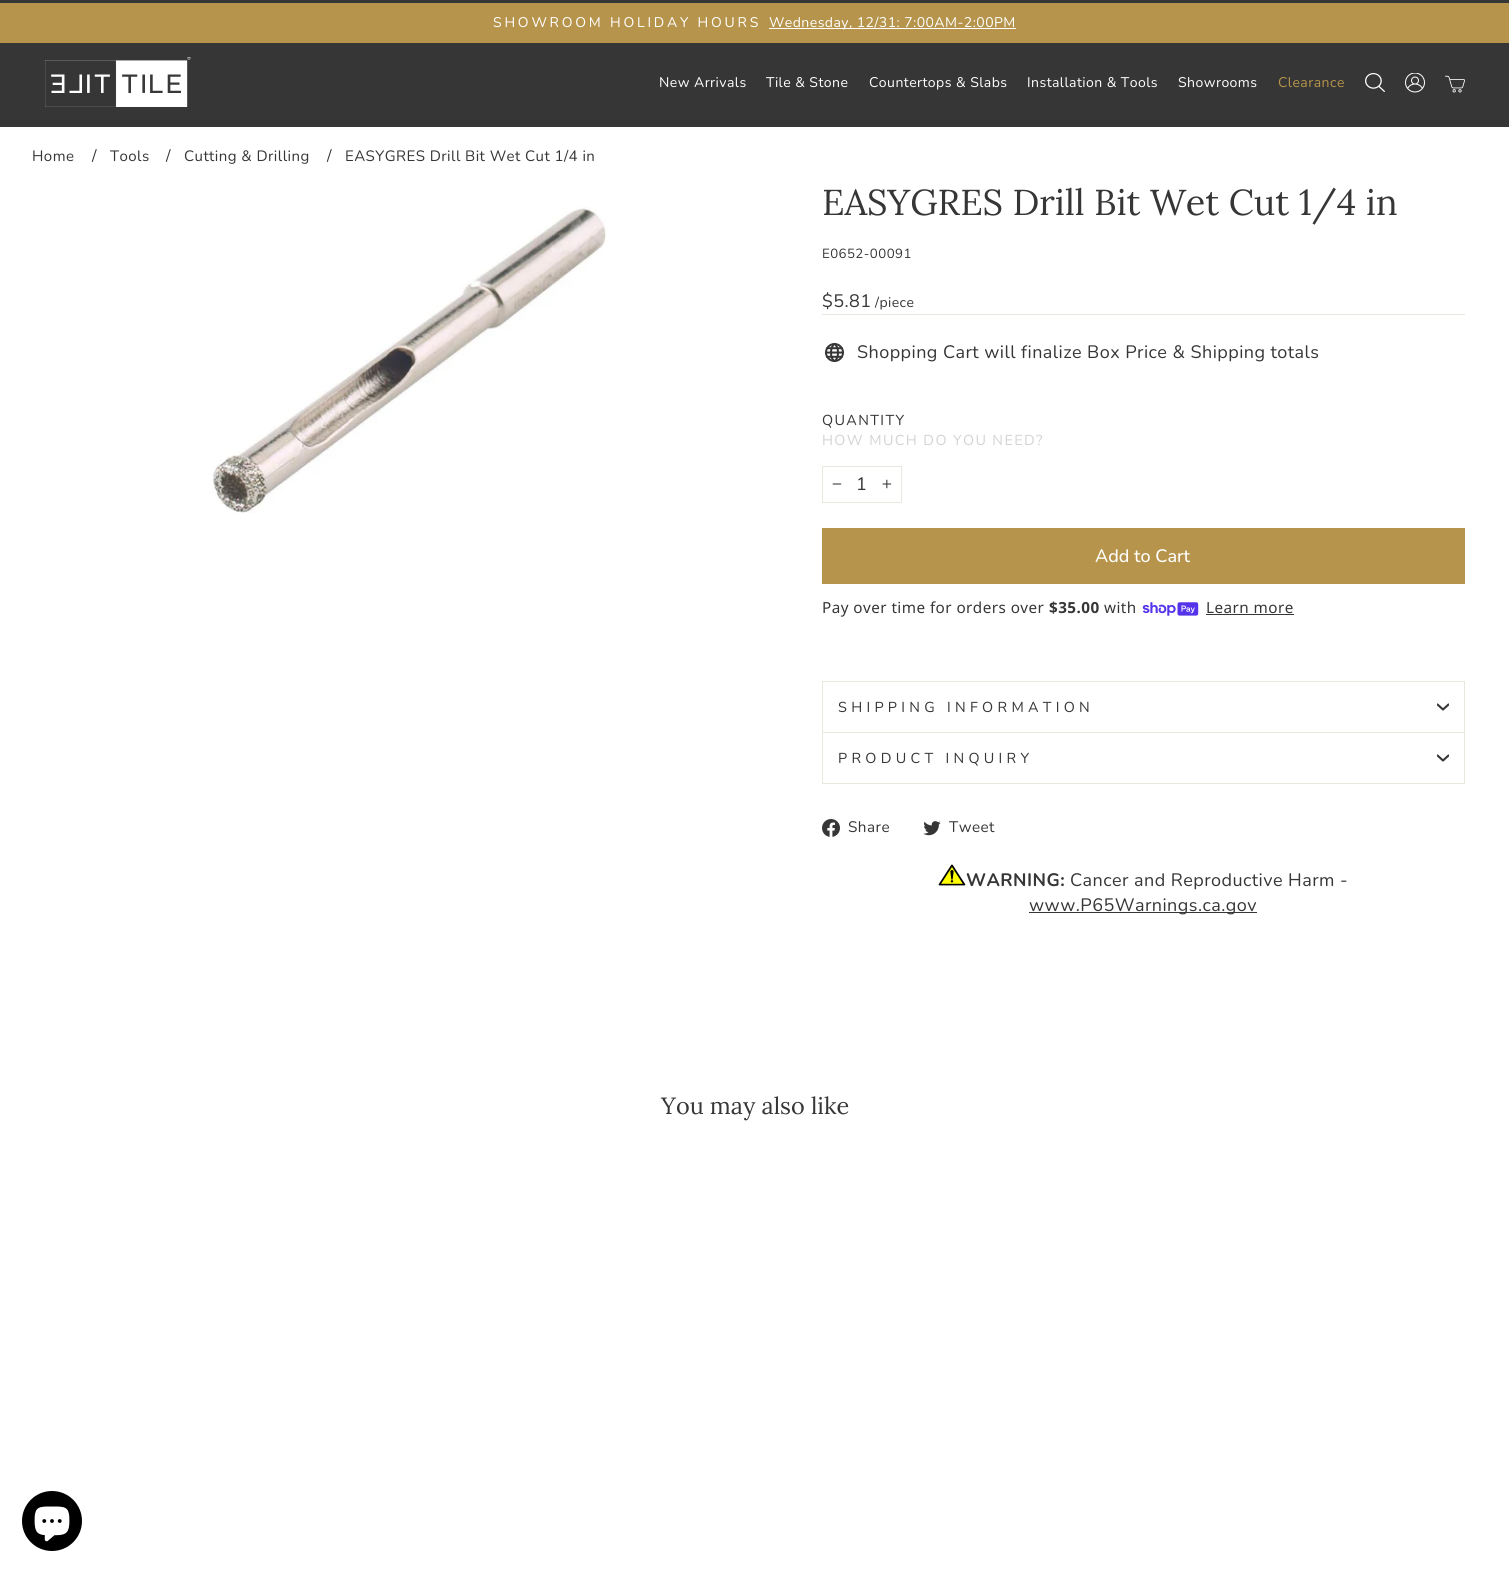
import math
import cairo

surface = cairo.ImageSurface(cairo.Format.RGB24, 1509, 1572)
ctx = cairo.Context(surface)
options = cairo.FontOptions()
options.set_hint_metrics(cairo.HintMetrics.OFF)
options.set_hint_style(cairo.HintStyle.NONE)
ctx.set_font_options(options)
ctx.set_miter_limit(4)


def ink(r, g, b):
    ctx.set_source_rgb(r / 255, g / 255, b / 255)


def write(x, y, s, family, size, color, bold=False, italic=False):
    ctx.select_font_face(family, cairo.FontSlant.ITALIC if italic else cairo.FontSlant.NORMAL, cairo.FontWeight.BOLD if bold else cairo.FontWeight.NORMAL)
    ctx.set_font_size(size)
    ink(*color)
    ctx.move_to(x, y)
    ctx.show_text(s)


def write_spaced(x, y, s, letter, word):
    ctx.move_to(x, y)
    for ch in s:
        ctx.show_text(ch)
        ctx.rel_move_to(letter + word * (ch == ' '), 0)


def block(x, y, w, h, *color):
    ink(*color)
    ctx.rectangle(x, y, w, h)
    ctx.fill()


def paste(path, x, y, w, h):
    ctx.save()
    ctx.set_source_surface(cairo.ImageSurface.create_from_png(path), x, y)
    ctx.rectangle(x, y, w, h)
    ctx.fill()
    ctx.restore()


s1 = dict(family="Lora", size=36, color=(54, 54, 54))
s2 = dict(family="Nunito Medium", size=18, color=(255, 255, 255))
s3 = dict(family="Lora", size=23.5, color=(54, 54, 54))

ink(255, 255, 255)
ctx.paint()
block(0, 0, 1509, 127, 54, 54, 54)
block(0, 3, 1509, 40, 182, 148, 75)
ctx.select_font_face("Nunito")
ctx.set_font_size(14)
ink(255, 255, 255)
write_spaced(493, 27, "SHOWROOM HOLIDAY HOURS", 2.8, 0)
block(769, 28, 247, 1, 255, 255, 255)
write_spaced(769, 27, "Wednesday, 12/31: 7:00AM-2:00PM", 0.45, 0)
paste("pic1.png", 45, 57, 146, 50)
write_spaced(659, 87, "New Arrivals", 0.45, 0)
write_spaced(766, 87, "Tile & Stone", 0.45, 0)
write_spaced(869, 87, "Countertops & Slabs", 0.45, 0)
write_spaced(1027, 87, "Installation & Tools", 0.45, 0)
write_spaced(1178, 87, "Showrooms", 0.45, 0)
ink(182, 148, 75)
write_spaced(1278, 87, "Clearance", 0.45, 0)
paste("pic2.png", 1365, 73, 20, 19)
paste("pic3.png", 1405, 73, 20, 20)
paste("pic4.png", 1445, 75, 20, 18)
ctx.set_font_size(15)
ink(54, 54, 54)
write_spaced(32, 161, "Home", 0.45, 0)
ctx.set_font_size(16)
write_spaced(92, 161, "/", 0.45, 0)
ctx.set_font_size(15)
write_spaced(110, 161, "Tools", 0.45, 0)
ctx.set_font_size(16)
write_spaced(166, 161, "/", 0.45, 0)
ctx.set_font_size(15)
write_spaced(184, 161, "Cutting & Drilling", 0.45, 0)
ctx.set_font_size(16)
write_spaced(327, 161, "/", 0.45, 0)
ctx.set_font_size(15)
write_spaced(345, 161, "EASYGRES Drill Bit Wet Cut 1/4 in", 0.45, 0)
paste("pic5.png", 212, 207, 395, 306)
write(822, 215, "EASYGRES Drill Bit Wet Cut 1/4 in", **s1)
ctx.select_font_face("Nunito")
ctx.set_font_size(13.25)
write_spaced(822, 258, "E0652-00091", 0.45, 0)
ctx.set_font_size(18)
write_spaced(822, 307, "$5.81", 0.45, 0)
ctx.set_font_size(14)
write_spaced(875, 307, "/piece", 0.45, 0)
block(822, 314, 643, 1, 232, 232, 225)
paste("pic6.png", 824, 342, 21, 21)
ctx.set_font_size(18)
ink(54, 54, 54)
write_spaced(857, 358, "Shopping Cart will finalize Box Price & Shipping totals", 0.45, 0)
ctx.set_font_size(14.4)
write_spaced(822, 425, "QUANTITY", 1.4, 0)
ink(211, 211, 211)
write_spaced(822, 445, "HOW MUCH DO YOU NEED?", 1.4, 0)
ctx.rectangle(822.5, 466.5, 79, 36)
ink(232, 232, 225)
ctx.set_line_width(1)
ctx.stroke()
paste("pic7.png", 832, 483, 10, 2)
ctx.set_font_size(18)
ink(54, 54, 54)
write_spaced(856, 490, "1", 0.45, 0)
paste("pic8.png", 882, 479, 10, 10)
block(822, 528, 643, 56, 182, 148, 75)
write(1095, 562, "Add to Cart", **s2)
ctx.select_font_face("Noto Sans")
ctx.set_font_size(15.25)
ink(54, 54, 54)
write_spaced(822, 613, "Pay over time for orders over", 0.45, 0)
ctx.select_font_face("Noto Sans", cairo.FontSlant.NORMAL, cairo.FontWeight.BOLD)
write_spaced(1049, 613, "$35.00", 0.45, 0)
ctx.select_font_face("Noto Sans")
write_spaced(1104, 613, "with", 0.45, 0)
paste("pic9.png", 1142, 602, 57, 14)
write_spaced(1206, 613, "Learn more", 0.45, 0)
block(1206, 614, 88, 1, 54, 54, 54)
block(822, 732, 643, 1, 232, 232, 225)
block(822, 681, 643, 1, 232, 232, 225)
block(1464, 681, 1, 51, 232, 232, 225)
block(822, 681, 1, 51, 232, 232, 225)
ctx.select_font_face("Nunito")
ctx.set_font_size(14.4)
ink(54, 54, 54)
write_spaced(838, 712, "SHIPPING INFORMATION", 4.3, 0)
ctx.save()
ctx.rectangle(1437, 701, 12, 12)
ctx.clip()
ctx.new_path()
ctx.move_to(1437.5, 704.5)
ctx.line_to(1443, 709.5)
ctx.line_to(1448.5, 704.5)
ctx.set_line_width(2.1)
ctx.set_line_cap(cairo.LineCap.ROUND)
ctx.set_line_join(cairo.LineJoin.ROUND)
ctx.stroke()
ctx.restore()
block(822, 783, 643, 1, 232, 232, 225)
block(1464, 733, 1, 50, 232, 232, 225)
block(822, 733, 1, 50, 232, 232, 225)
ink(54, 54, 54)
write_spaced(838, 763, "PRODUCT INQUIRY", 4.3, 0)
ctx.save()
ctx.rectangle(1437, 752, 12, 12)
ctx.clip()
ctx.new_path()
ctx.move_to(1437.5, 755.5)
ctx.line_to(1443, 760.5)
ctx.line_to(1448.5, 755.5)
ctx.set_line_width(2.1)
ctx.set_line_cap(cairo.LineCap.ROUND)
ctx.set_line_join(cairo.LineJoin.ROUND)
ctx.stroke()
ctx.restore()
paste("pic10.png", 822, 819, 18, 18)
ctx.set_font_size(15.25)
write_spaced(848, 832, "Share", 0.45, 0)
paste("pic11.png", 923, 821, 18, 15)
write_spaced(949, 832, "Tweet", 0.45, 0)
paste("pic12.png", 938, 864, 28, 22)
ctx.select_font_face("Nunito", cairo.FontSlant.NORMAL, cairo.FontWeight.BOLD)
ctx.set_font_size(18)
write_spaced(966, 886, "WARNING:", 0.45, 0)
ctx.select_font_face("Nunito")
write_spaced(1070, 886, "Cancer and Reproductive Harm -", 0.45, 0)
block(1029, 912, 228, 1, 54, 54, 54)
write_spaced(1029, 911, "www.P65Warnings.ca.gov", 0.45, 0)
write(661, 1114, "You may also like", **s3)
ink(0, 0, 0)
ctx.new_path()
ctx.arc(52, 1521, 30, 0, 2 * math.pi)
ctx.fill()
paste("pic13.png", 34, 1506, 36, 36)
surface.write_to_png("screenshot.png")
